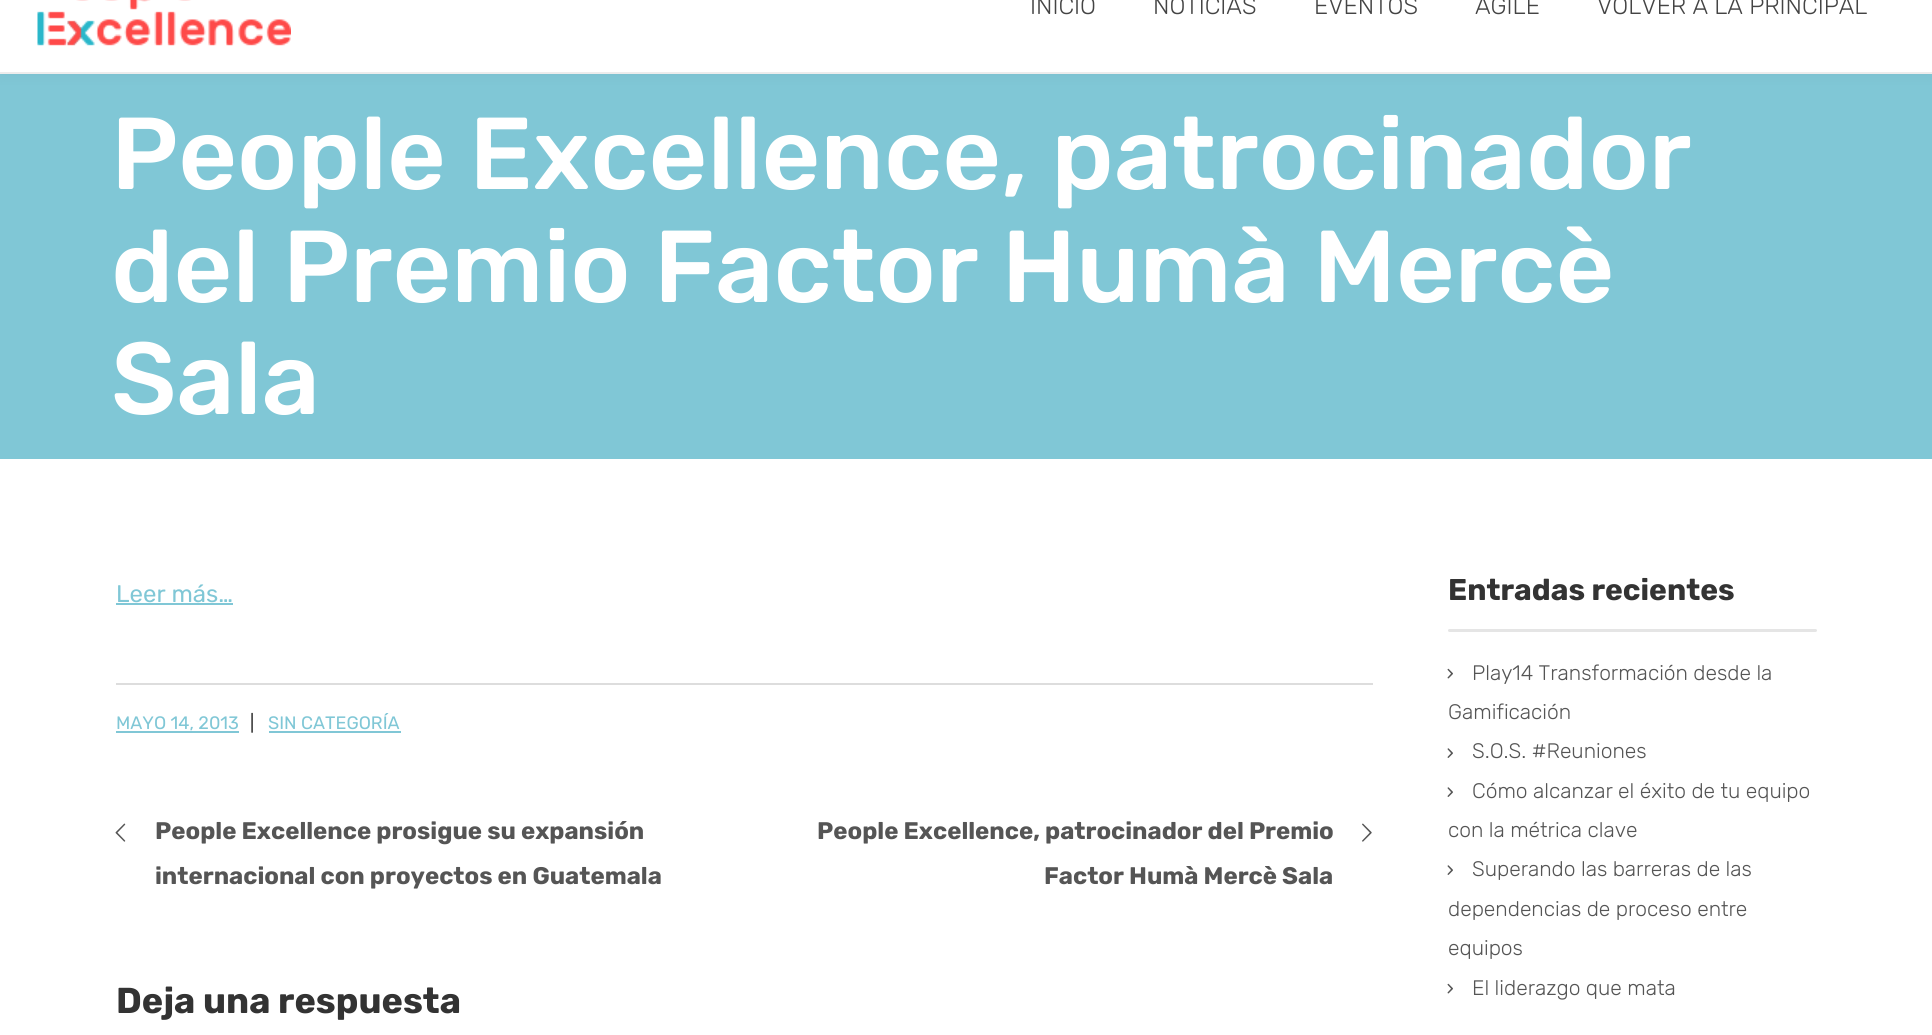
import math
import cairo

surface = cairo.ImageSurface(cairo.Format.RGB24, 1932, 1035)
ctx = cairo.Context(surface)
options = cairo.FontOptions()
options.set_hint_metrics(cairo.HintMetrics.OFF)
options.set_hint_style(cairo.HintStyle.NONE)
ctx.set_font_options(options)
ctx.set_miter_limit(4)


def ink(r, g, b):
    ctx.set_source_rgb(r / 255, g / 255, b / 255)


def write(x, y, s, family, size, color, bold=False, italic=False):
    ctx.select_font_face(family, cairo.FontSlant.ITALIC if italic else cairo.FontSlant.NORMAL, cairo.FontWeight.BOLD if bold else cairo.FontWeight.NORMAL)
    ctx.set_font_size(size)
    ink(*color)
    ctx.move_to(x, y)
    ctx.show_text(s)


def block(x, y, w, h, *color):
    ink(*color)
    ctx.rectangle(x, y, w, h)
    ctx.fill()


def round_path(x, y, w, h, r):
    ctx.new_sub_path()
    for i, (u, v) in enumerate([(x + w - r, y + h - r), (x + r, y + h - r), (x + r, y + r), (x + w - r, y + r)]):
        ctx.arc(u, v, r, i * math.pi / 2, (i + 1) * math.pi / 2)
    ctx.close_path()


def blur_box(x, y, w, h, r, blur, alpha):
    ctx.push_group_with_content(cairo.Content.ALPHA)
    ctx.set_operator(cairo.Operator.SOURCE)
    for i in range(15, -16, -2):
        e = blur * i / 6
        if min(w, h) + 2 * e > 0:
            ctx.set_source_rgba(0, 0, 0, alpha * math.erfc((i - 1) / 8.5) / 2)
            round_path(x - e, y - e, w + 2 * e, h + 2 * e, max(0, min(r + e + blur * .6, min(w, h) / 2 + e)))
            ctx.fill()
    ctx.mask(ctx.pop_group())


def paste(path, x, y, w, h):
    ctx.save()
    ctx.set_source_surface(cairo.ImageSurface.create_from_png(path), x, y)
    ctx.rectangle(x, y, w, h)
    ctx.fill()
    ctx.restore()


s1 = dict(family="Rubik Light", size=24, color=(68, 68, 68))
s2 = dict(family="Rubik Medium", size=102, color=(255, 255, 255))
s3 = dict(family="Rubik", size=24, color=(128, 199, 214))
s4 = dict(family="Rubik", size=18, color=(128, 199, 214))
s5 = dict(family="Rubik", size=18, color=(51, 51, 51))
s6 = dict(family="Rubik", size=24, color=(85, 85, 85), bold=True)
s7 = dict(family="Rubik", size=36, color=(51, 51, 51), bold=True)
s8 = dict(family="Rubik", size=30, color=(51, 51, 51), bold=True)
s9 = dict(family="Rubik Light", size=21, color=(85, 85, 85))

ink(255, 255, 255)
ctx.paint()
block(0, 74, 1932, 385, 128, 199, 214)
ink(0, 0, 0)
blur_box(0, -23, 1932, 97, 0, 7.5, 0.05)
block(0, 0, 1932, 72, 255, 255, 255)
block(0, 72, 1932, 2, 236, 236, 236)
paste("pic1.png", 37, 0, 254, 46)
write(1030, 14, "INICIO", **s1)
write(1153, 14, "NOTICIAS", **s1)
write(1314, 14, "EVENTOS", **s1)
write(1475, 14, "AGILE", **s1)
write(1597, 14, "VOLVER A LA PRINCIPAL", **s1)
write(111, 189, "People Excellence, patrocinador", **s2)
write(111, 302, "del Premio Factor Humà Mercè", **s2)
write(111, 414, "Sala", **s2)
write(116, 602, "Leer más…", **s3)
block(116, 603, 117, 2, 128, 199, 214)
block(116, 683, 1257, 2, 221, 221, 221)
write(116, 729, "MAYO 14, 2013", **s4)
block(116, 731, 123, 2, 128, 199, 214)
write(250, 729, "|", **s5)
write(268, 729, "SIN CATEGORÍA", **s4)
block(269, 731, 132, 2, 128, 199, 214)
paste("pic2.png", 115, 823, 11, 19)
write(155, 839, "People Excellence prosigue su expansión", **s6)
write(155, 884, "internacional con proyectos en Guatemala", **s6)
write(817, 839, "People Excellence, patrocinador del Premio", **s6)
write(1044, 884, "Factor Humà Mercè Sala", **s6)
paste("pic3.png", 1362, 823, 10, 19)
write(116, 1013, "Deja una respuesta", **s7)
write(1448, 600, "Entradas recientes", **s8)
ink(229, 229, 229)
round_path(1448, 629, 369, 3, 1.5)
ctx.fill()
paste("pic4.png", 1447, 668, 6, 11)
write(1472, 680, "Play14 Transformación desde la", **s9)
write(1448, 719, "Gamificación", **s9)
paste("pic5.png", 1447, 748, 6, 10)
write(1472, 758, "S.O.S. #Reuniones", **s9)
paste("pic5.png", 1447, 787, 6, 10)
write(1472, 798, "Cómo alcanzar el éxito de tu equipo", **s9)
write(1448, 837, "con la métrica clave", **s9)
paste("pic5.png", 1447, 865, 6, 10)
write(1472, 876, "Superando las barreras de las", **s9)
write(1448, 916, "dependencias de proceso entre", **s9)
write(1448, 955, "equipos", **s9)
paste("pic4.png", 1447, 983, 6, 11)
write(1472, 995, "El liderazgo que mata", **s9)
surface.write_to_png("screenshot.png")
